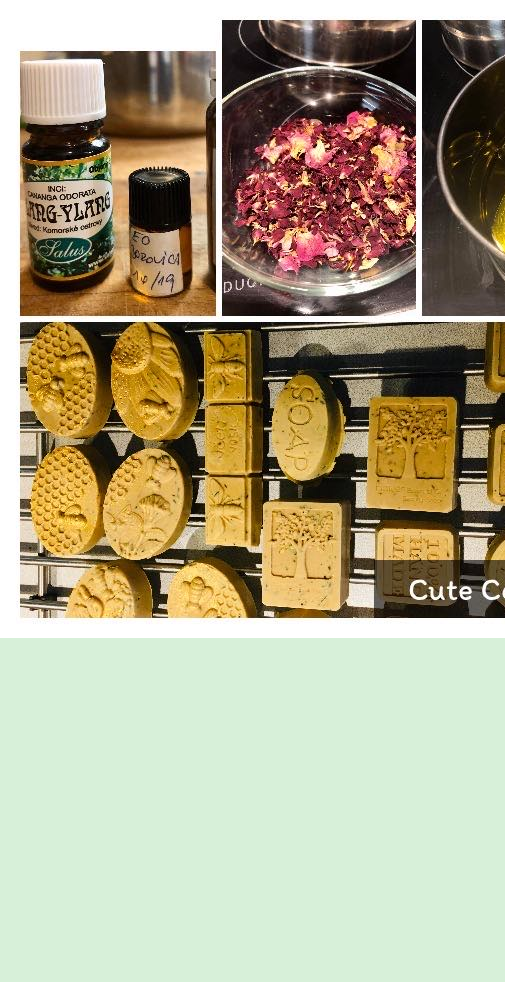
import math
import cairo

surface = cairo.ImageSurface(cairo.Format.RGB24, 505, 982)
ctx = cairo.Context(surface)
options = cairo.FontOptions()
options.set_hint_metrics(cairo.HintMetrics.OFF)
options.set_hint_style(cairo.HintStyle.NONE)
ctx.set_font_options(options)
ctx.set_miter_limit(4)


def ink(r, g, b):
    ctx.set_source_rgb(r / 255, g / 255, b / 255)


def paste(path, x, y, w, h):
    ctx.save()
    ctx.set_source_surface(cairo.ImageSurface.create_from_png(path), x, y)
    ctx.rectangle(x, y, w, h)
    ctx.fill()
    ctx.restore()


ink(215, 240, 217)
ctx.paint()
paste("pic1.png", 0, 0, 505, 638)
surface.write_to_png("screenshot.png")
